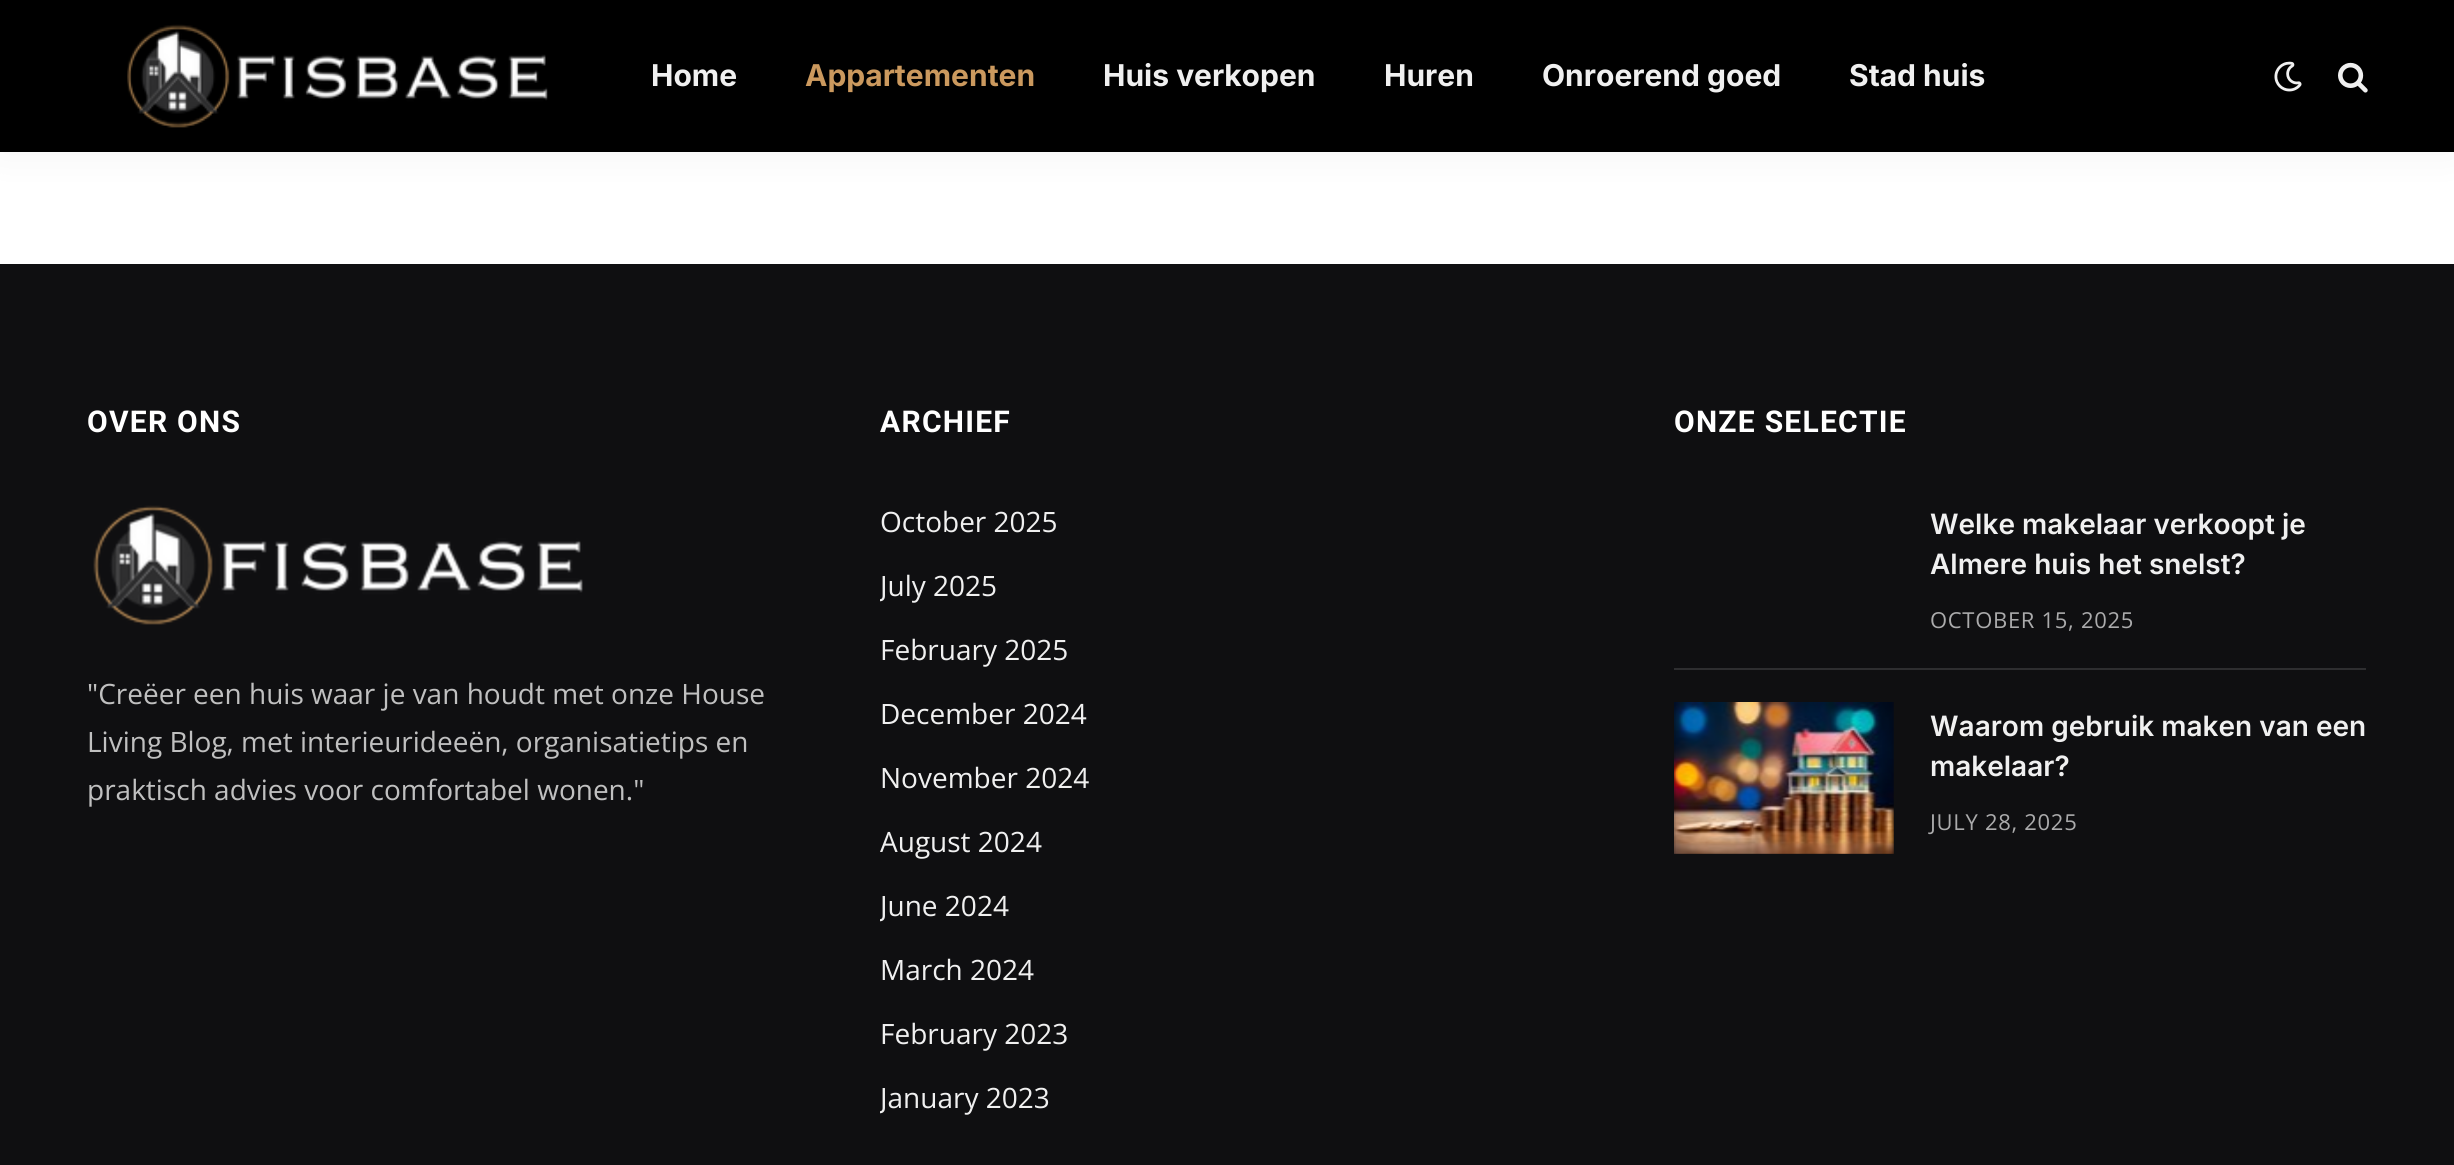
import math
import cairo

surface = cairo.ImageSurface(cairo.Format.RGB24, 2454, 1165)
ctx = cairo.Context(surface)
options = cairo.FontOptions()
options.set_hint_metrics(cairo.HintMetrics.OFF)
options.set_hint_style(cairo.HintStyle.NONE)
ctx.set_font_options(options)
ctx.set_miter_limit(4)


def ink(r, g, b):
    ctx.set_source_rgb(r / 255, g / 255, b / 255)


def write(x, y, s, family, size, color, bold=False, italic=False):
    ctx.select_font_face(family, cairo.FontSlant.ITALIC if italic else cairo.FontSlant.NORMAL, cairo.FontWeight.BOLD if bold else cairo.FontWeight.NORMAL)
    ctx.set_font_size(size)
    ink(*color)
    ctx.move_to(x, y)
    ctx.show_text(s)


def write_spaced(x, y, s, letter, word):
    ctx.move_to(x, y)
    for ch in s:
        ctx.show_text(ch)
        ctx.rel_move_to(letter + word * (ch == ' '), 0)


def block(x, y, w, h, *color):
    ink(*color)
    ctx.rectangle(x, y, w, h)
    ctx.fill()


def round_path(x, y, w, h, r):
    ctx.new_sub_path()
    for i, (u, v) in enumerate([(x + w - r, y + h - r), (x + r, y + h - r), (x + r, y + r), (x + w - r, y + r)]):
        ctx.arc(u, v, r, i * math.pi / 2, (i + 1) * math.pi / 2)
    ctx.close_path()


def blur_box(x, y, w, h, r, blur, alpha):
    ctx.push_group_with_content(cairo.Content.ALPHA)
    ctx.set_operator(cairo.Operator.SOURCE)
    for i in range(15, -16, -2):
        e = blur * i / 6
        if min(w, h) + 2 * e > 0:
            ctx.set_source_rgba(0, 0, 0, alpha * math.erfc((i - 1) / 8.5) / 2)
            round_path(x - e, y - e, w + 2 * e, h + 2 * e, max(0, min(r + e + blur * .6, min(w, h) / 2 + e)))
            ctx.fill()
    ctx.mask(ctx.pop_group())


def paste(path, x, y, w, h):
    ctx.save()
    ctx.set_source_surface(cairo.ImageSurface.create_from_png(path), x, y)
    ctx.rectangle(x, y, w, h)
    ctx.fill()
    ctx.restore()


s1 = dict(family="Inter", size=30, color=(240, 240, 240), bold=True)
s2 = dict(family="Inter", size=30, color=(203, 153, 94), bold=True)
s3 = dict(family="Open Sans", size=28, color=(192, 192, 192))
s4 = dict(family="Open Sans", size=28, color=(240, 240, 240))
s5 = dict(family="Inter SemiBold", size=28, color=(240, 240, 240))

ink(255, 255, 255)
ctx.paint()
ink(0, 0, 0)
blur_box(0, 0, 2454, 152, 0, 20, 0.05)
block(0, 0, 2454, 152, 0, 0, 0)
paste("pic1.png", 127, 24, 421, 104)
write(651, 86, "Home", **s1)
write(805, 86, "Appartementen", **s2)
write(1103, 86, "Huis verkopen", **s1)
write(1384, 86, "Huren", **s1)
write(1542, 86, "Onroerend goed", **s1)
write(1849, 86, "Stad huis", **s1)
paste("pic2.png", 2274, 61, 28, 31)
paste("pic3.png", 2338, 62, 30, 31)
block(0, 264, 2454, 901, 15, 15, 17)
ctx.select_font_face("Roboto", cairo.FontSlant.NORMAL, cairo.FontWeight.BOLD)
ink(255, 255, 255)
write_spaced(87, 432, "OVER ONS", 1.25, 0)
paste("pic4.png", 93, 505, 490, 120)
write(87, 704, "\"Creëer een huis waar je van houdt met onze House", **s3)
write(87, 752, "Living Blog, met interieurideeën, organisatietips en", **s3)
write(87, 800, "praktisch advies voor comfortabel wonen.\"", **s3)
ctx.select_font_face("Roboto", cairo.FontSlant.NORMAL, cairo.FontWeight.BOLD)
ctx.set_font_size(30)
ink(255, 255, 255)
write_spaced(880, 432, "ARCHIEF", 1.25, 0)
write(880, 532, "October 2025", **s4)
ctx.save()
ctx.rectangle(880, 554, 694, 62)
ctx.clip()
write(880, 596, "July 2025", **s4)
ctx.restore()
write(880, 660, "February 2025", **s4)
write(880, 724, "December 2024", **s4)
write(880, 788, "November 2024", **s4)
write(880, 852, "August 2024", **s4)
ctx.save()
ctx.rectangle(880, 874, 694, 62)
ctx.clip()
write(880, 916, "June 2024", **s4)
ctx.restore()
write(880, 980, "March 2024", **s4)
write(880, 1044, "February 2023", **s4)
ctx.save()
ctx.rectangle(880, 1066, 694, 62)
ctx.clip()
write(880, 1108, "January 2023", **s4)
ctx.restore()
ctx.select_font_face("Roboto", cairo.FontSlant.NORMAL, cairo.FontWeight.BOLD)
ctx.set_font_size(30)
ink(255, 255, 255)
write_spaced(1674, 432, "ONZE SELECTIE", 1.25, 0)
write(1930, 534, "Welke makelaar verkoopt je", **s5)
write(1930, 574, "Almere huis het snelst?", **s5)
ctx.select_font_face("Open Sans")
ctx.set_font_size(22)
ink(171, 171, 172)
write_spaced(1930, 628, "OCTOBER 15, 2025", 0.7, 0)
block(1674, 668, 692, 2, 46, 46, 48)
paste("pic5.png", 1674, 702, 220, 152)
write(1930, 736, "Waarom gebruik maken van een", **s5)
write(1930, 776, "makelaar?", **s5)
ctx.select_font_face("Open Sans")
ctx.set_font_size(22)
ink(171, 171, 172)
write_spaced(1930, 830, "JULY 28, 2025", 0.7, 0)
surface.write_to_png("screenshot.png")
